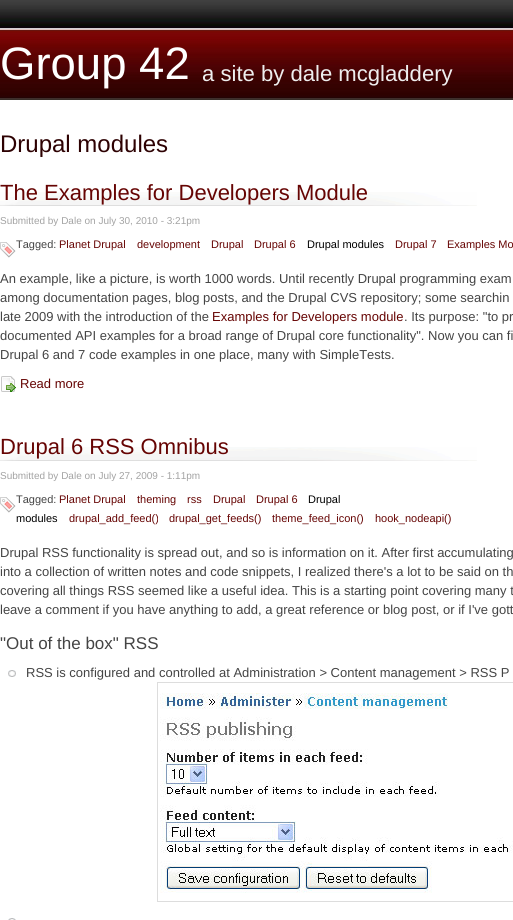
import math
import cairo

surface = cairo.ImageSurface(cairo.Format.RGB24, 513, 920)
ctx = cairo.Context(surface)
options = cairo.FontOptions()
options.set_hint_metrics(cairo.HintMetrics.OFF)
options.set_hint_style(cairo.HintStyle.NONE)
ctx.set_font_options(options)
ctx.set_miter_limit(4)


def ink(r, g, b):
    ctx.set_source_rgb(r / 255, g / 255, b / 255)


def write(x, y, s, family, size, color, bold=False, italic=False):
    ctx.select_font_face(family, cairo.FontSlant.ITALIC if italic else cairo.FontSlant.NORMAL, cairo.FontWeight.BOLD if bold else cairo.FontWeight.NORMAL)
    ctx.set_font_size(size)
    ink(*color)
    ctx.move_to(x, y)
    ctx.show_text(s)


def paste(path, x, y, w, h):
    ctx.save()
    ctx.set_source_surface(cairo.ImageSurface.create_from_png(path), x, y)
    ctx.rectangle(x, y, w, h)
    ctx.fill()
    ctx.restore()


s1 = dict(family="Liberation Sans", size=45.5, color=(255, 255, 255))
s2 = dict(family="Liberation Sans", size=22.1, color=(238, 238, 238))
s3 = dict(family="Liberation Sans", size=24, color=(45, 1, 2))
s4 = dict(family="Liberation Sans", size=22, color=(102, 4, 3))
s5 = dict(family="Liberation Sans", size=10, color=(163, 163, 163))
s6 = dict(family="Liberation Sans", size=11, color=(68, 68, 68))
s7 = dict(family="Liberation Sans", size=11, color=(102, 4, 3))
s8 = dict(family="Liberation Sans", size=11, color=(0, 0, 0))
s9 = dict(family="Liberation Sans", size=13, color=(68, 68, 68))
s10 = dict(family="Liberation Sans", size=13, color=(102, 4, 3))
s11 = dict(family="Liberation Sans", size=17, color=(68, 68, 68))

ink(255, 255, 255)
ctx.paint()
paste("pic1.png", 0, 0, 513, 100)
write(0, 79, "Group 42", **s1)
write(202, 81, "a site by dale mcgladdery", **s2)
write(0, 152, "Drupal modules", **s3)
paste("pic2.png", 0, 192, 477, 14)
write(0, 200, "The Examples for Developers Module", **s4)
write(0, 224, "Submitted by Dale on July 30, 2010 - 3:21pm", **s5)
paste("pic3.png", 0, 242, 16, 16)
write(16, 248, "Tagged:", **s6)
write(59, 248, "Planet Drupal", **s7)
write(137, 248, "development", **s7)
write(211, 248, "Drupal", **s7)
write(254, 248, "Drupal 6", **s7)
write(307, 248, "Drupal modules", **s8)
write(395, 248, "Drupal 7", **s7)
write(447, 248, "Examples Mo", **s7)
write(0, 283, "An example, like a picture, is worth 1000 words. Until recently Drupal programming exam", **s9)
write(0, 302, "among documentation pages, blog posts, and the Drupal CVS repository; some searchin", **s9)
write(0, 321, "late 2009 with the introduction of the", **s9)
write(212, 321, "Examples for Developers module", **s10)
write(404, 321, ". Its purpose: \"to pr", **s9)
write(0, 340, "documented API examples for a broad range of Drupal core functionality\". Now you can fi", **s9)
write(0, 359, "Drupal 6 and 7 code examples in one place, many with SimpleTests.", **s9)
paste("pic4.png", 1, 376, 15, 16)
write(20, 388, "Read more", **s10)
paste("pic2.png", 0, 447, 477, 14)
write(0, 454, "Drupal 6 RSS Omnibus", **s4)
write(0, 479, "Submitted by Dale on July 27, 2009 - 1:11pm", **s5)
paste("pic3.png", 0, 497, 16, 16)
write(16, 503, "Tagged:", **s6)
write(59, 503, "Planet Drupal", **s7)
write(137, 503, "theming", **s7)
write(187, 503, "rss", **s7)
write(213, 503, "Drupal", **s7)
write(256, 503, "Drupal 6", **s7)
write(308, 503, "Drupal", **s8)
write(16, 522, "modules", **s8)
write(69, 522, "drupal_add_feed()", **s7)
write(169, 522, "drupal_get_feeds()", **s7)
write(272, 522, "theme_feed_icon()", **s7)
write(375, 522, "hook_nodeapi()", **s7)
write(0, 557, "Drupal RSS functionality is spread out, and so is information on it. After first accumulating", **s9)
write(0, 576, "into a collection of written notes and code snippets, I realized there's a lot to be said on th", **s9)
write(0, 595, "covering all things RSS seemed like a useful idea. This is a starting point covering many t", **s9)
write(0, 614, "leave a comment if you have anything to add, a great reference or blog post, or if I've gott", **s9)
write(0, 649, "\"Out of the box\" RSS", **s11)
paste("pic5.png", 8, 670, 8, 7)
write(26, 677, "RSS is configured and controlled at Administration > Content management > RSS P", **s9)
ctx.rectangle(157.5, 682.5, 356, 219)
ink(221, 221, 221)
ctx.set_line_width(1)
ctx.stroke()
paste("pic6.png", 160, 693, 353, 200)
paste("pic7.png", 8, 918, 8, 2)
surface.write_to_png("screenshot.png")
